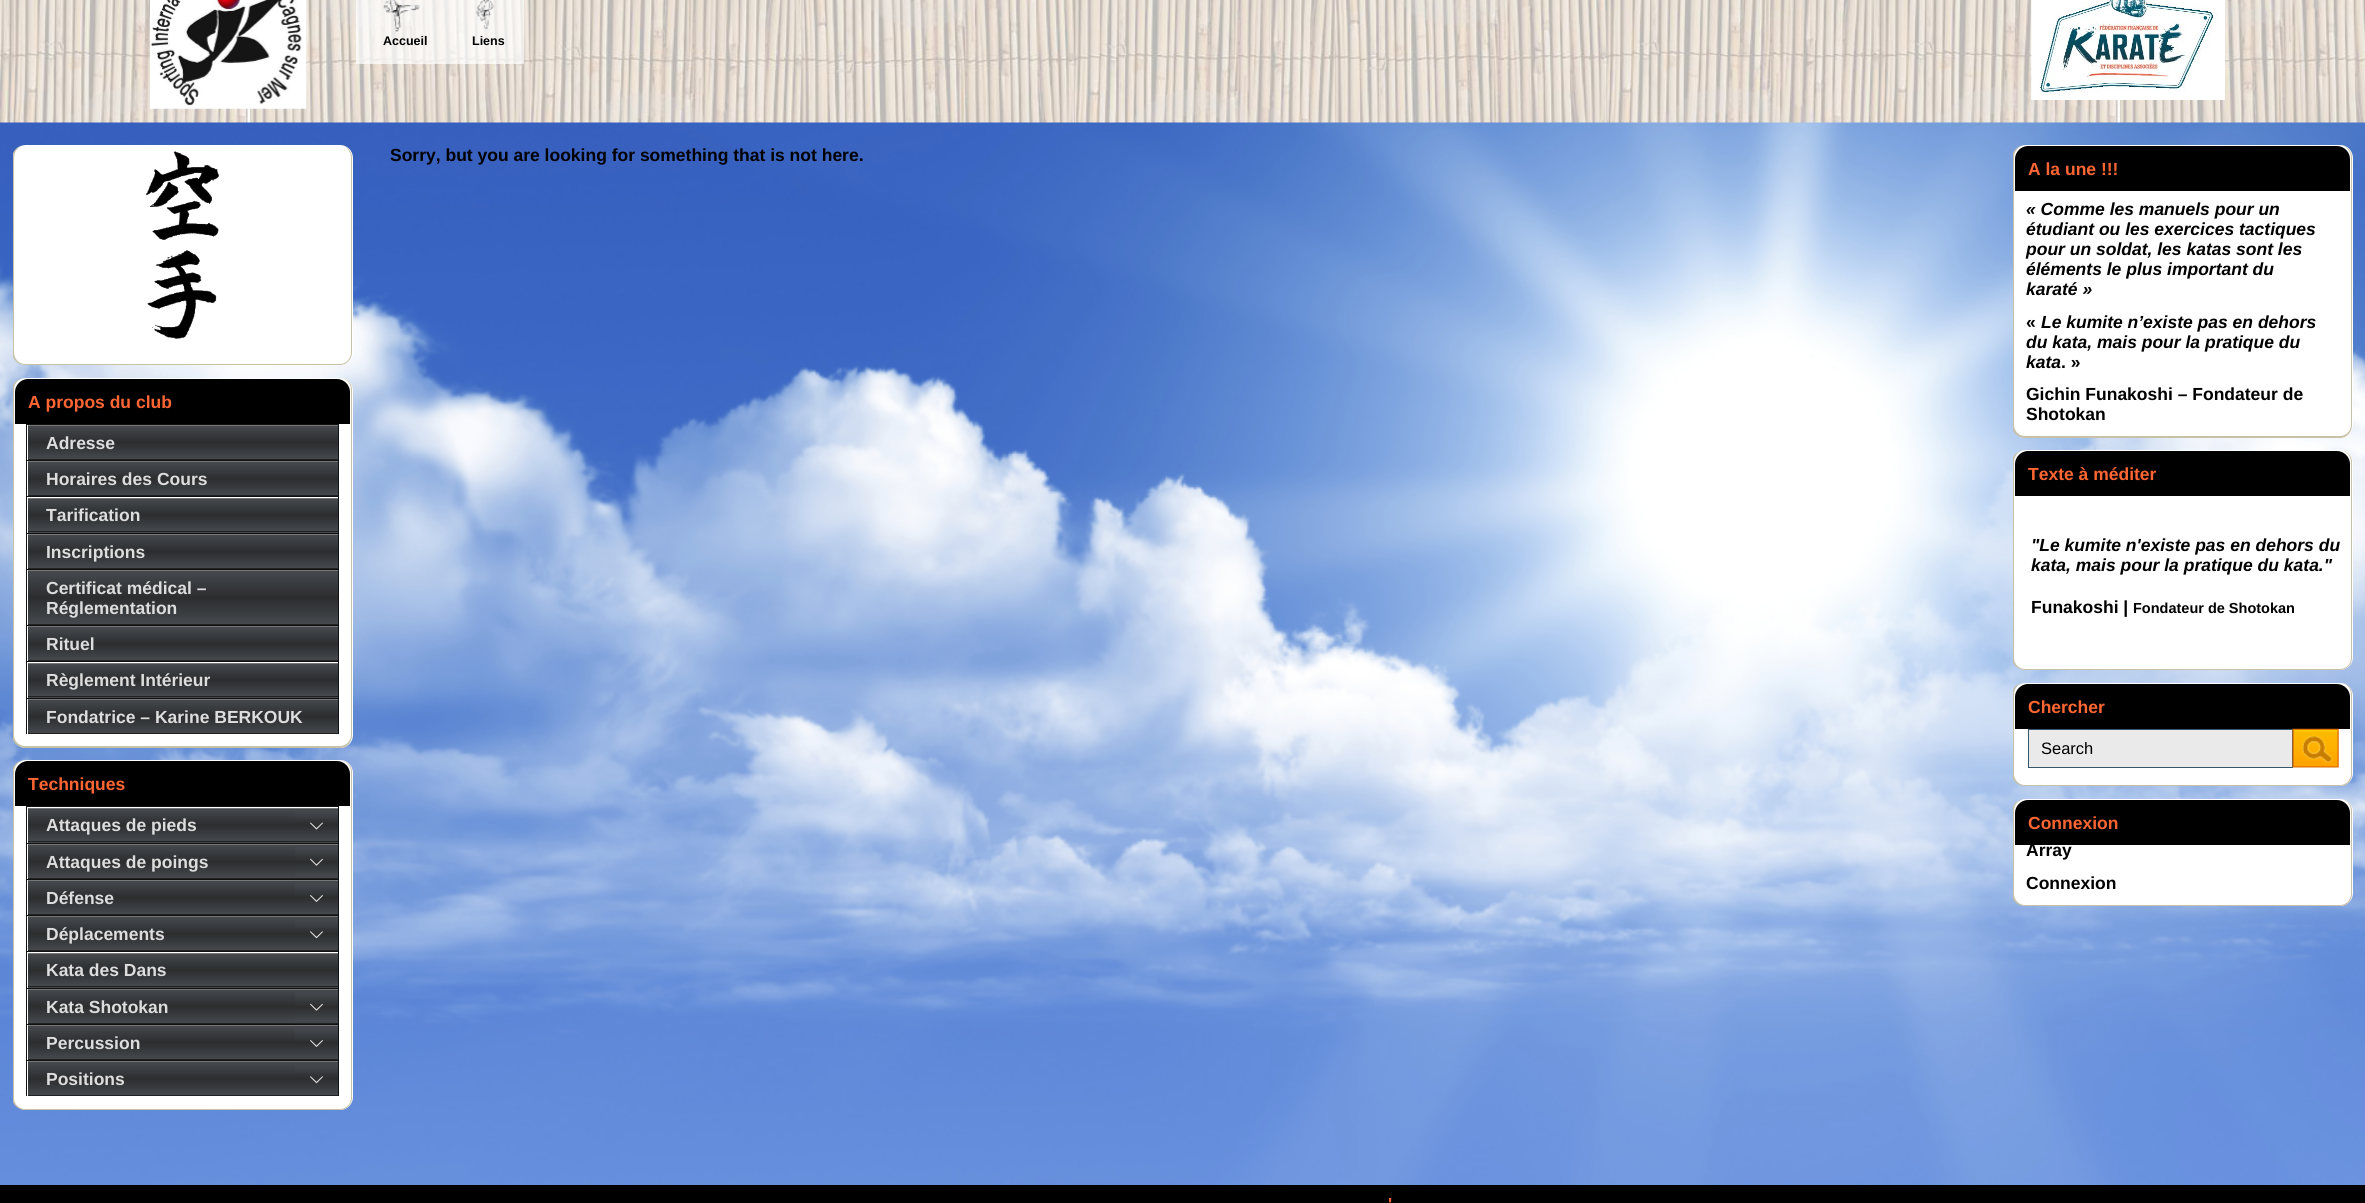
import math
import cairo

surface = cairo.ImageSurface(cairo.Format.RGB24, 2365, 1203)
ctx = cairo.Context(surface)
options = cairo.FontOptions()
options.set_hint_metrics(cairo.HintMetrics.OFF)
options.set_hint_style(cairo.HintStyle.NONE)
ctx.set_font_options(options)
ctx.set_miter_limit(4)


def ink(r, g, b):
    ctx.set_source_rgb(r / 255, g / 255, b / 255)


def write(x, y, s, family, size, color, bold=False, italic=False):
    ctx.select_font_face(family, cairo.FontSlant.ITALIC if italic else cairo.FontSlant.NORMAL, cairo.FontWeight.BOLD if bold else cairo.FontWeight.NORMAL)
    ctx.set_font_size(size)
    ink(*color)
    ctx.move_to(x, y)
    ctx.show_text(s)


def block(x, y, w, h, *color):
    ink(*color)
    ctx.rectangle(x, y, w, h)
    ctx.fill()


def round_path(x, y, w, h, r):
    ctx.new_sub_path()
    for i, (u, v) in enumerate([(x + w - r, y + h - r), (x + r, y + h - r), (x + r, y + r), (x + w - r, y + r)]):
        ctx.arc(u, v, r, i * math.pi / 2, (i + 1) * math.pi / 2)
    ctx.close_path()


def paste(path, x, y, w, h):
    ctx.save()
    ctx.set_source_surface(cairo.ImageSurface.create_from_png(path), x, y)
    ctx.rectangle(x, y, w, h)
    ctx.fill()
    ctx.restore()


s1 = dict(family="Liberation Sans", size=12.5, color=(0, 0, 0), bold=True)
s2 = dict(family="Liberation Sans", size=17.5, color=(0, 0, 0), bold=True)
s3 = dict(family="Liberation Sans", size=17.5, color=(255, 102, 51), bold=True)
s4 = dict(family="Liberation Sans", size=17.5, color=(221, 221, 221), bold=True)
s5 = dict(family="Liberation Sans", size=17.5, color=(0, 0, 0), bold=True, italic=True)
s6 = dict(family="Liberation Sans", size=14.5, color=(0, 0, 0), bold=True)
s7 = dict(family="Liberation Sans", size=16.5, color=(0, 0, 0))

ink(255, 255, 255)
ctx.paint()
paste("pic1.png", 0, 122, 2365, 1063)
paste("pic2.png", 0, 0, 2365, 123)
paste("pic3.png", 150, 0, 157, 109)
ctx.set_source_rgba(1, 1, 1, 0.7)
ctx.rectangle(356, 0, 168, 64)
ctx.fill()
paste("pic4.png", 383, 0, 37, 32)
write(383, 45, "Accueil", **s1)
paste("pic5.png", 476, 0, 18, 31)
write(472, 45, "Liens", **s1)
paste("pic6.png", 2031, 0, 194, 100)
write(390, 161, "Sorry, but you are looking for something that is not here.", **s2)
ink(255, 255, 255)
round_path(13, 145, 340, 220, 13)
ctx.fill()
ctx.save()
ctx.rectangle(13, 145, 340, 1003)
ctx.clip()
ink(199, 193, 166)
ctx.set_fill_rule(cairo.FillRule.EVEN_ODD)
ctx.new_path()
ctx.move_to(25, 145)
ctx.line_to(340, 145)
ctx.curve_to(347, 145, 352, 151, 352, 158)
ctx.line_to(352, 352)
ctx.curve_to(352, 359, 347, 365, 340, 365)
ctx.line_to(25, 365)
ctx.curve_to(18, 365, 12, 359, 12, 352)
ctx.line_to(12, 158)
ctx.curve_to(12, 151, 18, 145, 25, 145)
ctx.close_path()
ctx.move_to(25, 145)
ctx.line_to(340, 145)
ctx.curve_to(346, 145, 351, 151, 351, 158)
ctx.line_to(351, 352)
ctx.curve_to(351, 359, 346, 364, 340, 364)
ctx.line_to(25, 364)
ctx.curve_to(19, 364, 14, 359, 14, 352)
ctx.line_to(14, 158)
ctx.curve_to(14, 151, 19, 145, 25, 145)
ctx.close_path()
ctx.fill()
ctx.restore()
paste("pic7.png", 146, 151, 73, 188)
round_path(13, 378, 340, 370, 13)
ctx.fill()
ctx.save()
ctx.rectangle(13, 145, 340, 1003)
ctx.clip()
ink(199, 193, 166)
ctx.set_fill_rule(cairo.FillRule.EVEN_ODD)
ctx.new_path()
ctx.move_to(25, 378)
ctx.line_to(340, 378)
ctx.curve_to(347, 378, 352, 383, 352, 390)
ctx.line_to(352, 735)
ctx.curve_to(352, 742, 347, 748, 340, 748)
ctx.line_to(25, 748)
ctx.curve_to(18, 748, 12, 742, 12, 735)
ctx.line_to(12, 390)
ctx.curve_to(12, 383, 18, 378, 25, 378)
ctx.close_path()
ctx.move_to(25, 378)
ctx.line_to(340, 378)
ctx.curve_to(346, 378, 351, 383, 351, 390)
ctx.line_to(351, 735)
ctx.curve_to(351, 741, 346, 746, 340, 746)
ctx.line_to(25, 746)
ctx.curve_to(19, 746, 14, 741, 14, 735)
ctx.line_to(14, 390)
ctx.curve_to(14, 383, 19, 378, 25, 378)
ctx.close_path()
ctx.fill()
ctx.restore()
ink(0, 0, 0)
ctx.new_path()
ctx.move_to(28, 379)
ctx.line_to(337, 379)
ctx.curve_to(344, 379, 350, 385, 350, 392)
ctx.line_to(350, 424)
ctx.line_to(15, 424)
ctx.line_to(15, 392)
ctx.curve_to(15, 385, 21, 379, 28, 379)
ctx.close_path()
ctx.fill()
write(28, 408, "A propos du club", **s3)
block(26, 424, 313, 1, 17, 17, 17)
block(338, 424, 1, 36, 17, 17, 17)
block(26, 424, 1, 36, 17, 17, 17)
gradient = cairo.LinearGradient(183, 426, 183, 459)
gradient.add_color_stop_rgba(0, 0.271, 0.286, 0.302, 1)
gradient.add_color_stop_rgba(0.5, 0.169, 0.176, 0.184, 1)
gradient.add_color_stop_rgba(1, 0.271, 0.286, 0.302, 1)
ctx.set_source(gradient)
ctx.rectangle(28, 426, 310, 33)
ctx.fill()
block(28, 425, 310, 1, 119, 119, 119)
block(28, 459, 310, 1, 34, 34, 34)
write(46, 449, "Adresse", **s4)
block(26, 460, 313, 1, 17, 17, 17)
block(338, 460, 1, 36, 17, 17, 17)
block(26, 460, 1, 36, 17, 17, 17)
gradient = cairo.LinearGradient(183, 430, 183, 463)
gradient.add_color_stop_rgba(0, 0.271, 0.286, 0.302, 1)
gradient.add_color_stop_rgba(0.5, 0.169, 0.176, 0.184, 1)
gradient.add_color_stop_rgba(1, 0.271, 0.286, 0.302, 1)
ctx.set_source(gradient)
ctx.rectangle(28, 462, 310, 1)
ctx.fill()
gradient = cairo.LinearGradient(183, 463, 183, 495)
gradient.add_color_stop_rgba(0, 0.271, 0.286, 0.302, 1)
gradient.add_color_stop_rgba(0.5, 0.169, 0.176, 0.184, 1)
gradient.add_color_stop_rgba(1, 0.271, 0.286, 0.302, 1)
ctx.set_source(gradient)
ctx.rectangle(28, 463, 310, 32)
ctx.fill()
block(28, 461, 310, 1, 119, 119, 119)
block(28, 495, 310, 1, 34, 34, 34)
write(46, 485, "Horaires des Cours", **s4)
block(26, 496, 313, 1, 17, 17, 17)
block(338, 496, 1, 37, 17, 17, 17)
block(26, 496, 1, 37, 17, 17, 17)
gradient = cairo.LinearGradient(183, 499, 183, 531)
gradient.add_color_stop_rgba(0, 0.271, 0.286, 0.302, 1)
gradient.add_color_stop_rgba(0.5, 0.169, 0.176, 0.184, 1)
gradient.add_color_stop_rgba(1, 0.271, 0.286, 0.302, 1)
ctx.set_source(gradient)
ctx.rectangle(28, 499, 310, 32)
ctx.fill()
gradient = cairo.LinearGradient(183, 531, 183, 564)
gradient.add_color_stop_rgba(0, 0.271, 0.286, 0.302, 1)
gradient.add_color_stop_rgba(0.5, 0.169, 0.176, 0.184, 1)
gradient.add_color_stop_rgba(1, 0.271, 0.286, 0.302, 1)
ctx.set_source(gradient)
ctx.rectangle(28, 532, 310, 1)
ctx.fill()
block(28, 498, 310, 1, 119, 119, 119)
block(28, 531, 310, 1, 34, 34, 34)
write(46, 521, "Tarification", **s4)
block(26, 533, 313, 1, 17, 17, 17)
block(338, 533, 1, 36, 17, 17, 17)
block(26, 533, 1, 36, 17, 17, 17)
gradient = cairo.LinearGradient(183, 535, 183, 568)
gradient.add_color_stop_rgba(0, 0.271, 0.286, 0.302, 1)
gradient.add_color_stop_rgba(0.5, 0.169, 0.176, 0.184, 1)
gradient.add_color_stop_rgba(1, 0.271, 0.286, 0.302, 1)
ctx.set_source(gradient)
ctx.rectangle(28, 535, 310, 33)
ctx.fill()
block(28, 534, 310, 1, 119, 119, 119)
block(28, 568, 310, 1, 34, 34, 34)
write(46, 558, "Inscriptions", **s4)
block(26, 569, 313, 1, 17, 17, 17)
block(338, 569, 1, 56, 17, 17, 17)
block(26, 569, 1, 56, 17, 17, 17)
gradient = cairo.LinearGradient(183, 571, 183, 624)
gradient.add_color_stop_rgba(0, 0.271, 0.286, 0.302, 1)
gradient.add_color_stop_rgba(0.5, 0.169, 0.176, 0.184, 1)
gradient.add_color_stop_rgba(1, 0.271, 0.286, 0.302, 1)
ctx.set_source(gradient)
ctx.rectangle(28, 571, 310, 53)
ctx.fill()
block(28, 570, 310, 1, 119, 119, 119)
block(28, 624, 310, 1, 34, 34, 34)
write(46, 594, "Certificat médical –", **s4)
write(46, 614, "Réglementation", **s4)
block(26, 625, 313, 1, 17, 17, 17)
block(338, 625, 1, 36, 17, 17, 17)
block(26, 625, 1, 36, 17, 17, 17)
gradient = cairo.LinearGradient(183, 595, 183, 628)
gradient.add_color_stop_rgba(0, 0.271, 0.286, 0.302, 1)
gradient.add_color_stop_rgba(0.5, 0.169, 0.176, 0.184, 1)
gradient.add_color_stop_rgba(1, 0.271, 0.286, 0.302, 1)
ctx.set_source(gradient)
ctx.rectangle(28, 627, 310, 1)
ctx.fill()
gradient = cairo.LinearGradient(183, 628, 183, 660)
gradient.add_color_stop_rgba(0, 0.271, 0.286, 0.302, 1)
gradient.add_color_stop_rgba(0.5, 0.169, 0.176, 0.184, 1)
gradient.add_color_stop_rgba(1, 0.271, 0.286, 0.302, 1)
ctx.set_source(gradient)
ctx.rectangle(28, 628, 310, 32)
ctx.fill()
block(28, 626, 310, 1, 119, 119, 119)
block(28, 660, 310, 1, 34, 34, 34)
write(46, 650, "Rituel", **s4)
block(26, 661, 313, 1, 17, 17, 17)
block(338, 661, 1, 37, 17, 17, 17)
block(26, 661, 1, 37, 17, 17, 17)
gradient = cairo.LinearGradient(183, 664, 183, 696)
gradient.add_color_stop_rgba(0, 0.271, 0.286, 0.302, 1)
gradient.add_color_stop_rgba(0.5, 0.169, 0.176, 0.184, 1)
gradient.add_color_stop_rgba(1, 0.271, 0.286, 0.302, 1)
ctx.set_source(gradient)
ctx.rectangle(28, 664, 310, 32)
ctx.fill()
gradient = cairo.LinearGradient(183, 696, 183, 729)
gradient.add_color_stop_rgba(0, 0.271, 0.286, 0.302, 1)
gradient.add_color_stop_rgba(0.5, 0.169, 0.176, 0.184, 1)
gradient.add_color_stop_rgba(1, 0.271, 0.286, 0.302, 1)
ctx.set_source(gradient)
ctx.rectangle(28, 697, 310, 1)
ctx.fill()
block(28, 663, 310, 1, 119, 119, 119)
block(28, 696, 310, 1, 34, 34, 34)
write(46, 686, "Règlement Intérieur", **s4)
block(26, 698, 313, 1, 17, 17, 17)
block(338, 698, 1, 36, 17, 17, 17)
block(26, 698, 1, 36, 17, 17, 17)
gradient = cairo.LinearGradient(183, 700, 183, 733)
gradient.add_color_stop_rgba(0, 0.271, 0.286, 0.302, 1)
gradient.add_color_stop_rgba(0.5, 0.169, 0.176, 0.184, 1)
gradient.add_color_stop_rgba(1, 0.271, 0.286, 0.302, 1)
ctx.set_source(gradient)
ctx.rectangle(28, 700, 310, 33)
ctx.fill()
block(28, 699, 310, 1, 119, 119, 119)
block(28, 733, 310, 1, 34, 34, 34)
write(46, 723, "Fondatrice – Karine BERKOUK", **s4)
ink(255, 255, 255)
round_path(13, 760, 340, 350, 13)
ctx.fill()
ctx.save()
ctx.rectangle(13, 145, 340, 1003)
ctx.clip()
ink(199, 193, 166)
ctx.set_fill_rule(cairo.FillRule.EVEN_ODD)
ctx.new_path()
ctx.move_to(25, 760)
ctx.line_to(340, 760)
ctx.curve_to(347, 760, 352, 766, 352, 772)
ctx.line_to(352, 1098)
ctx.curve_to(352, 1104, 347, 1110, 340, 1110)
ctx.line_to(25, 1110)
ctx.curve_to(18, 1110, 12, 1104, 12, 1098)
ctx.line_to(12, 772)
ctx.curve_to(12, 766, 18, 760, 25, 760)
ctx.close_path()
ctx.move_to(25, 760)
ctx.line_to(340, 760)
ctx.curve_to(346, 760, 351, 766, 351, 772)
ctx.line_to(351, 1098)
ctx.curve_to(351, 1104, 346, 1109, 340, 1109)
ctx.line_to(25, 1109)
ctx.curve_to(19, 1109, 14, 1104, 14, 1098)
ctx.line_to(14, 772)
ctx.curve_to(14, 766, 19, 760, 25, 760)
ctx.close_path()
ctx.fill()
ctx.restore()
ink(0, 0, 0)
ctx.new_path()
ctx.move_to(28, 761)
ctx.line_to(337, 761)
ctx.curve_to(344, 761, 350, 767, 350, 774)
ctx.line_to(350, 806)
ctx.line_to(15, 806)
ctx.line_to(15, 774)
ctx.curve_to(15, 767, 21, 761, 28, 761)
ctx.close_path()
ctx.fill()
write(28, 790, "Techniques", **s3)
block(26, 806, 313, 1, 17, 17, 17)
block(338, 806, 1, 37, 17, 17, 17)
block(26, 806, 1, 37, 17, 17, 17)
gradient = cairo.LinearGradient(183, 809, 183, 841)
gradient.add_color_stop_rgba(0, 0.271, 0.286, 0.302, 1)
gradient.add_color_stop_rgba(0.5, 0.169, 0.176, 0.184, 1)
gradient.add_color_stop_rgba(1, 0.271, 0.286, 0.302, 1)
ctx.set_source(gradient)
ctx.rectangle(28, 809, 310, 32)
ctx.fill()
gradient = cairo.LinearGradient(183, 841, 183, 874)
gradient.add_color_stop_rgba(0, 0.271, 0.286, 0.302, 1)
gradient.add_color_stop_rgba(0.5, 0.169, 0.176, 0.184, 1)
gradient.add_color_stop_rgba(1, 0.271, 0.286, 0.302, 1)
ctx.set_source(gradient)
ctx.rectangle(28, 842, 310, 1)
ctx.fill()
block(28, 808, 310, 1, 119, 119, 119)
block(28, 841, 310, 1, 34, 34, 34)
write(46, 831, "Attaques de pieds", **s4)
gradient = cairo.LinearGradient(316, 811, 316, 840)
gradient.add_color_stop_rgba(0, 0.271, 0.286, 0.302, 1)
gradient.add_color_stop_rgba(0.5, 0.169, 0.176, 0.184, 1)
gradient.add_color_stop_rgba(1, 0.271, 0.286, 0.302, 1)
ctx.set_source(gradient)
ctx.rectangle(295, 811, 43, 8)
ctx.fill()
paste("pic8.png", 310, 822, 13, 8)
block(26, 843, 313, 1, 17, 17, 17)
block(338, 843, 1, 36, 17, 17, 17)
block(26, 843, 1, 36, 17, 17, 17)
gradient = cairo.LinearGradient(183, 845, 183, 878)
gradient.add_color_stop_rgba(0, 0.271, 0.286, 0.302, 1)
gradient.add_color_stop_rgba(0.5, 0.169, 0.176, 0.184, 1)
gradient.add_color_stop_rgba(1, 0.271, 0.286, 0.302, 1)
ctx.set_source(gradient)
ctx.rectangle(28, 845, 310, 33)
ctx.fill()
block(28, 844, 310, 1, 119, 119, 119)
block(28, 878, 310, 1, 34, 34, 34)
write(46, 868, "Attaques de poings", **s4)
gradient = cairo.LinearGradient(316, 819, 316, 848)
gradient.add_color_stop_rgba(0, 0.271, 0.286, 0.302, 1)
gradient.add_color_stop_rgba(0.5, 0.169, 0.176, 0.184, 1)
gradient.add_color_stop_rgba(1, 0.271, 0.286, 0.302, 1)
ctx.set_source(gradient)
ctx.rectangle(295, 847, 43, 1)
ctx.fill()
gradient = cairo.LinearGradient(316, 848, 316, 876)
gradient.add_color_stop_rgba(0, 0.271, 0.286, 0.302, 1)
gradient.add_color_stop_rgba(0.5, 0.169, 0.176, 0.184, 1)
gradient.add_color_stop_rgba(1, 0.271, 0.286, 0.302, 1)
ctx.set_source(gradient)
ctx.rectangle(295, 848, 43, 28)
ctx.fill()
paste("pic9.png", 310, 858, 13, 8)
block(26, 879, 313, 1, 17, 17, 17)
block(338, 879, 1, 36, 17, 17, 17)
block(26, 879, 1, 36, 17, 17, 17)
gradient = cairo.LinearGradient(183, 881, 183, 914)
gradient.add_color_stop_rgba(0, 0.271, 0.286, 0.302, 1)
gradient.add_color_stop_rgba(0.5, 0.169, 0.176, 0.184, 1)
gradient.add_color_stop_rgba(1, 0.271, 0.286, 0.302, 1)
ctx.set_source(gradient)
ctx.rectangle(28, 881, 310, 33)
ctx.fill()
block(28, 880, 310, 1, 119, 119, 119)
block(28, 914, 310, 1, 34, 34, 34)
write(46, 904, "Défense", **s4)
gradient = cairo.LinearGradient(316, 855, 316, 884)
gradient.add_color_stop_rgba(0, 0.271, 0.286, 0.302, 1)
gradient.add_color_stop_rgba(0.5, 0.169, 0.176, 0.184, 1)
gradient.add_color_stop_rgba(1, 0.271, 0.286, 0.302, 1)
ctx.set_source(gradient)
ctx.rectangle(295, 883, 43, 1)
ctx.fill()
gradient = cairo.LinearGradient(316, 884, 316, 913)
gradient.add_color_stop_rgba(0, 0.271, 0.286, 0.302, 1)
gradient.add_color_stop_rgba(0.5, 0.169, 0.176, 0.184, 1)
gradient.add_color_stop_rgba(1, 0.271, 0.286, 0.302, 1)
ctx.set_source(gradient)
ctx.rectangle(295, 884, 43, 12)
ctx.fill()
paste("pic10.png", 310, 895, 13, 7)
block(26, 915, 313, 1, 17, 17, 17)
block(338, 915, 1, 36, 17, 17, 17)
block(26, 915, 1, 36, 17, 17, 17)
gradient = cairo.LinearGradient(183, 885, 183, 918)
gradient.add_color_stop_rgba(0, 0.271, 0.286, 0.302, 1)
gradient.add_color_stop_rgba(0.5, 0.169, 0.176, 0.184, 1)
gradient.add_color_stop_rgba(1, 0.271, 0.286, 0.302, 1)
ctx.set_source(gradient)
ctx.rectangle(28, 917, 310, 1)
ctx.fill()
gradient = cairo.LinearGradient(183, 918, 183, 950)
gradient.add_color_stop_rgba(0, 0.271, 0.286, 0.302, 1)
gradient.add_color_stop_rgba(0.5, 0.169, 0.176, 0.184, 1)
gradient.add_color_stop_rgba(1, 0.271, 0.286, 0.302, 1)
ctx.set_source(gradient)
ctx.rectangle(28, 918, 310, 32)
ctx.fill()
block(28, 916, 310, 1, 119, 119, 119)
block(28, 950, 310, 1, 34, 34, 34)
write(46, 940, "Déplacements", **s4)
gradient = cairo.LinearGradient(316, 920, 316, 949)
gradient.add_color_stop_rgba(0, 0.271, 0.286, 0.302, 1)
gradient.add_color_stop_rgba(0.5, 0.169, 0.176, 0.184, 1)
gradient.add_color_stop_rgba(1, 0.271, 0.286, 0.302, 1)
ctx.set_source(gradient)
ctx.rectangle(295, 920, 43, 8)
ctx.fill()
paste("pic11.png", 310, 931, 13, 8)
block(26, 951, 313, 1, 17, 17, 17)
block(338, 951, 1, 37, 17, 17, 17)
block(26, 951, 1, 37, 17, 17, 17)
gradient = cairo.LinearGradient(183, 954, 183, 986)
gradient.add_color_stop_rgba(0, 0.271, 0.286, 0.302, 1)
gradient.add_color_stop_rgba(0.5, 0.169, 0.176, 0.184, 1)
gradient.add_color_stop_rgba(1, 0.271, 0.286, 0.302, 1)
ctx.set_source(gradient)
ctx.rectangle(28, 954, 310, 32)
ctx.fill()
gradient = cairo.LinearGradient(183, 986, 183, 1019)
gradient.add_color_stop_rgba(0, 0.271, 0.286, 0.302, 1)
gradient.add_color_stop_rgba(0.5, 0.169, 0.176, 0.184, 1)
gradient.add_color_stop_rgba(1, 0.271, 0.286, 0.302, 1)
ctx.set_source(gradient)
ctx.rectangle(28, 987, 310, 1)
ctx.fill()
block(28, 953, 310, 1, 119, 119, 119)
block(28, 986, 310, 1, 34, 34, 34)
write(46, 976, "Kata des Dans", **s4)
block(26, 988, 313, 1, 17, 17, 17)
block(338, 988, 1, 36, 17, 17, 17)
block(26, 988, 1, 36, 17, 17, 17)
gradient = cairo.LinearGradient(183, 990, 183, 1023)
gradient.add_color_stop_rgba(0, 0.271, 0.286, 0.302, 1)
gradient.add_color_stop_rgba(0.5, 0.169, 0.176, 0.184, 1)
gradient.add_color_stop_rgba(1, 0.271, 0.286, 0.302, 1)
ctx.set_source(gradient)
ctx.rectangle(28, 990, 310, 33)
ctx.fill()
block(28, 989, 310, 1, 119, 119, 119)
block(28, 1023, 310, 1, 34, 34, 34)
write(46, 1013, "Kata Shotokan", **s4)
gradient = cairo.LinearGradient(316, 964, 316, 993)
gradient.add_color_stop_rgba(0, 0.271, 0.286, 0.302, 1)
gradient.add_color_stop_rgba(0.5, 0.169, 0.176, 0.184, 1)
gradient.add_color_stop_rgba(1, 0.271, 0.286, 0.302, 1)
ctx.set_source(gradient)
ctx.rectangle(295, 992, 43, 1)
ctx.fill()
gradient = cairo.LinearGradient(316, 993, 316, 1021)
gradient.add_color_stop_rgba(0, 0.271, 0.286, 0.302, 1)
gradient.add_color_stop_rgba(0.5, 0.169, 0.176, 0.184, 1)
gradient.add_color_stop_rgba(1, 0.271, 0.286, 0.302, 1)
ctx.set_source(gradient)
ctx.rectangle(295, 993, 43, 28)
ctx.fill()
paste("pic9.png", 310, 1003, 13, 8)
block(26, 1024, 313, 1, 17, 17, 17)
block(338, 1024, 1, 36, 17, 17, 17)
block(26, 1024, 1, 36, 17, 17, 17)
gradient = cairo.LinearGradient(183, 1026, 183, 1059)
gradient.add_color_stop_rgba(0, 0.271, 0.286, 0.302, 1)
gradient.add_color_stop_rgba(0.5, 0.169, 0.176, 0.184, 1)
gradient.add_color_stop_rgba(1, 0.271, 0.286, 0.302, 1)
ctx.set_source(gradient)
ctx.rectangle(28, 1026, 310, 33)
ctx.fill()
block(28, 1025, 310, 1, 119, 119, 119)
block(28, 1059, 310, 1, 34, 34, 34)
write(46, 1049, "Percussion", **s4)
gradient = cairo.LinearGradient(316, 1000, 316, 1029)
gradient.add_color_stop_rgba(0, 0.271, 0.286, 0.302, 1)
gradient.add_color_stop_rgba(0.5, 0.169, 0.176, 0.184, 1)
gradient.add_color_stop_rgba(1, 0.271, 0.286, 0.302, 1)
ctx.set_source(gradient)
ctx.rectangle(295, 1028, 43, 1)
ctx.fill()
gradient = cairo.LinearGradient(316, 1029, 316, 1058)
gradient.add_color_stop_rgba(0, 0.271, 0.286, 0.302, 1)
gradient.add_color_stop_rgba(0.5, 0.169, 0.176, 0.184, 1)
gradient.add_color_stop_rgba(1, 0.271, 0.286, 0.302, 1)
ctx.set_source(gradient)
ctx.rectangle(295, 1029, 43, 12)
ctx.fill()
paste("pic10.png", 310, 1040, 13, 7)
block(26, 1060, 313, 1, 17, 17, 17)
block(338, 1060, 1, 36, 17, 17, 17)
block(26, 1060, 1, 36, 17, 17, 17)
gradient = cairo.LinearGradient(183, 1030, 183, 1063)
gradient.add_color_stop_rgba(0, 0.271, 0.286, 0.302, 1)
gradient.add_color_stop_rgba(0.5, 0.169, 0.176, 0.184, 1)
gradient.add_color_stop_rgba(1, 0.271, 0.286, 0.302, 1)
ctx.set_source(gradient)
ctx.rectangle(28, 1062, 310, 1)
ctx.fill()
gradient = cairo.LinearGradient(183, 1063, 183, 1095)
gradient.add_color_stop_rgba(0, 0.271, 0.286, 0.302, 1)
gradient.add_color_stop_rgba(0.5, 0.169, 0.176, 0.184, 1)
gradient.add_color_stop_rgba(1, 0.271, 0.286, 0.302, 1)
ctx.set_source(gradient)
ctx.rectangle(28, 1063, 310, 32)
ctx.fill()
block(28, 1061, 310, 1, 119, 119, 119)
block(28, 1095, 310, 1, 34, 34, 34)
write(46, 1085, "Positions", **s4)
gradient = cairo.LinearGradient(316, 1065, 316, 1094)
gradient.add_color_stop_rgba(0, 0.271, 0.286, 0.302, 1)
gradient.add_color_stop_rgba(0.5, 0.169, 0.176, 0.184, 1)
gradient.add_color_stop_rgba(1, 0.271, 0.286, 0.302, 1)
ctx.set_source(gradient)
ctx.rectangle(295, 1065, 43, 8)
ctx.fill()
paste("pic11.png", 310, 1076, 13, 8)
ink(255, 255, 255)
round_path(2013, 145, 340, 293, 13)
ctx.fill()
ctx.save()
ctx.rectangle(2013, 145, 340, 799)
ctx.clip()
ink(199, 193, 166)
ctx.set_fill_rule(cairo.FillRule.EVEN_ODD)
ctx.new_path()
ctx.move_to(2025, 145)
ctx.line_to(2340, 145)
ctx.curve_to(2347, 145, 2352, 151, 2352, 158)
ctx.line_to(2352, 425)
ctx.curve_to(2352, 432, 2347, 438, 2340, 438)
ctx.line_to(2025, 438)
ctx.curve_to(2018, 438, 2012, 432, 2012, 425)
ctx.line_to(2012, 158)
ctx.curve_to(2012, 151, 2018, 145, 2025, 145)
ctx.close_path()
ctx.move_to(2025, 145)
ctx.line_to(2340, 145)
ctx.curve_to(2346, 145, 2351, 151, 2351, 158)
ctx.line_to(2351, 425)
ctx.curve_to(2351, 431, 2346, 436, 2340, 436)
ctx.line_to(2025, 436)
ctx.curve_to(2019, 436, 2014, 431, 2014, 425)
ctx.line_to(2014, 158)
ctx.curve_to(2014, 151, 2019, 145, 2025, 145)
ctx.close_path()
ctx.fill()
ctx.restore()
ink(0, 0, 0)
ctx.new_path()
ctx.move_to(2028, 146)
ctx.line_to(2337, 146)
ctx.curve_to(2344, 146, 2350, 152, 2350, 159)
ctx.line_to(2350, 191)
ctx.line_to(2015, 191)
ctx.line_to(2015, 159)
ctx.curve_to(2015, 152, 2021, 146, 2028, 146)
ctx.close_path()
ctx.fill()
write(2028, 175, "A la une !!!", **s3)
write(2026, 215, "« Comme les manuels pour un", **s5)
write(2026, 235, "étudiant ou les exercices tactiques", **s5)
write(2026, 255, "pour un soldat, les katas sont les", **s5)
write(2026, 275, "éléments le plus important du", **s5)
write(2026, 295, "karaté »", **s5)
write(2026, 328, "«", **s2)
write(2041, 328, "Le kumite n’existe pas en dehors", **s5)
write(2026, 348, "du kata, mais pour la pratique du", **s5)
write(2026, 368, "kata", **s5)
write(2061, 368, ". »", **s2)
write(2026, 400, "Gichin Funakoshi – Fondateur de", **s2)
write(2026, 420, "Shotokan", **s2)
ink(255, 255, 255)
round_path(2013, 450, 340, 220, 13)
ctx.fill()
ctx.save()
ctx.rectangle(2013, 145, 340, 799)
ctx.clip()
ink(199, 193, 166)
ctx.set_fill_rule(cairo.FillRule.EVEN_ODD)
ctx.new_path()
ctx.move_to(2025, 450)
ctx.line_to(2340, 450)
ctx.curve_to(2347, 450, 2352, 456, 2352, 462)
ctx.line_to(2352, 658)
ctx.curve_to(2352, 664, 2347, 670, 2340, 670)
ctx.line_to(2025, 670)
ctx.curve_to(2018, 670, 2012, 664, 2012, 658)
ctx.line_to(2012, 462)
ctx.curve_to(2012, 456, 2018, 450, 2025, 450)
ctx.close_path()
ctx.move_to(2025, 450)
ctx.line_to(2340, 450)
ctx.curve_to(2346, 450, 2351, 456, 2351, 462)
ctx.line_to(2351, 658)
ctx.curve_to(2351, 664, 2346, 669, 2340, 669)
ctx.line_to(2025, 669)
ctx.curve_to(2019, 669, 2014, 664, 2014, 658)
ctx.line_to(2014, 462)
ctx.curve_to(2014, 456, 2019, 450, 2025, 450)
ctx.close_path()
ctx.fill()
ctx.restore()
ink(0, 0, 0)
ctx.new_path()
ctx.move_to(2028, 451)
ctx.line_to(2337, 451)
ctx.curve_to(2344, 451, 2350, 457, 2350, 464)
ctx.line_to(2350, 496)
ctx.line_to(2015, 496)
ctx.line_to(2015, 464)
ctx.curve_to(2015, 457, 2021, 451, 2028, 451)
ctx.close_path()
ctx.fill()
write(2028, 480, "Texte à méditer", **s3)
write(2031, 551, "\"Le kumite n'existe pas en dehors du", **s5)
write(2031, 571, "kata, mais pour la pratique du kata.\"", **s5)
write(2031, 613, "Funakoshi |", **s2)
write(2133, 613, "Fondateur de Shotokan", **s6)
ink(255, 255, 255)
round_path(2013, 683, 340, 103, 13)
ctx.fill()
ctx.save()
ctx.rectangle(2013, 145, 340, 799)
ctx.clip()
ink(199, 193, 166)
ctx.set_fill_rule(cairo.FillRule.EVEN_ODD)
ctx.new_path()
ctx.move_to(2025, 682)
ctx.line_to(2340, 682)
ctx.curve_to(2347, 682, 2352, 688, 2352, 695)
ctx.line_to(2352, 774)
ctx.curve_to(2352, 781, 2347, 786, 2340, 786)
ctx.line_to(2025, 786)
ctx.curve_to(2018, 786, 2012, 781, 2012, 774)
ctx.line_to(2012, 695)
ctx.curve_to(2012, 688, 2018, 682, 2025, 682)
ctx.close_path()
ctx.move_to(2025, 682)
ctx.line_to(2340, 682)
ctx.curve_to(2346, 682, 2351, 688, 2351, 695)
ctx.line_to(2351, 774)
ctx.curve_to(2351, 780, 2346, 785, 2340, 785)
ctx.line_to(2025, 785)
ctx.curve_to(2019, 785, 2014, 780, 2014, 774)
ctx.line_to(2014, 695)
ctx.curve_to(2014, 688, 2019, 682, 2025, 682)
ctx.close_path()
ctx.fill()
ctx.restore()
ink(0, 0, 0)
ctx.new_path()
ctx.move_to(2028, 684)
ctx.line_to(2337, 684)
ctx.curve_to(2344, 684, 2350, 690, 2350, 697)
ctx.line_to(2350, 729)
ctx.line_to(2015, 729)
ctx.line_to(2015, 697)
ctx.curve_to(2015, 690, 2021, 684, 2028, 684)
ctx.close_path()
ctx.fill()
write(2028, 713, "Chercher", **s3)
ink(234, 234, 234)
ctx.rectangle(2028.5, 729.5, 264, 38)
ctx.fill_preserve()
ink(55, 86, 108)
ctx.set_line_width(1)
ctx.stroke()
write(2041, 754, "Search", **s7)
paste("pic12.png", 2292, 728, 47, 40)
ink(255, 255, 255)
round_path(2013, 799, 340, 107, 13)
ctx.fill()
ctx.save()
ctx.rectangle(2013, 145, 340, 799)
ctx.clip()
ink(199, 193, 166)
ctx.set_fill_rule(cairo.FillRule.EVEN_ODD)
ctx.new_path()
ctx.move_to(2025, 799)
ctx.line_to(2340, 799)
ctx.curve_to(2347, 799, 2352, 804, 2352, 811)
ctx.line_to(2352, 894)
ctx.curve_to(2352, 901, 2347, 906, 2340, 906)
ctx.line_to(2025, 906)
ctx.curve_to(2018, 906, 2012, 901, 2012, 894)
ctx.line_to(2012, 811)
ctx.curve_to(2012, 804, 2018, 799, 2025, 799)
ctx.close_path()
ctx.move_to(2025, 799)
ctx.line_to(2340, 799)
ctx.curve_to(2346, 799, 2351, 804, 2351, 811)
ctx.line_to(2351, 894)
ctx.curve_to(2351, 900, 2346, 905, 2340, 905)
ctx.line_to(2025, 905)
ctx.curve_to(2019, 905, 2014, 900, 2014, 894)
ctx.line_to(2014, 811)
ctx.curve_to(2014, 804, 2019, 799, 2025, 799)
ctx.close_path()
ctx.fill()
ctx.restore()
ink(0, 0, 0)
ctx.new_path()
ctx.move_to(2028, 800)
ctx.line_to(2337, 800)
ctx.curve_to(2344, 800, 2350, 806, 2350, 813)
ctx.line_to(2350, 845)
ctx.line_to(2015, 845)
ctx.line_to(2015, 813)
ctx.curve_to(2015, 806, 2021, 800, 2028, 800)
ctx.close_path()
ctx.fill()
write(2028, 829, "Connexion", **s3)
write(2026, 856, "Array", **s2)
write(2026, 889, "Connexion", **s2)
block(0, 1185, 2365, 18, 0, 0, 0)
write(1388, 1210, "'", **s3)
surface.write_to_png("screenshot.png")
